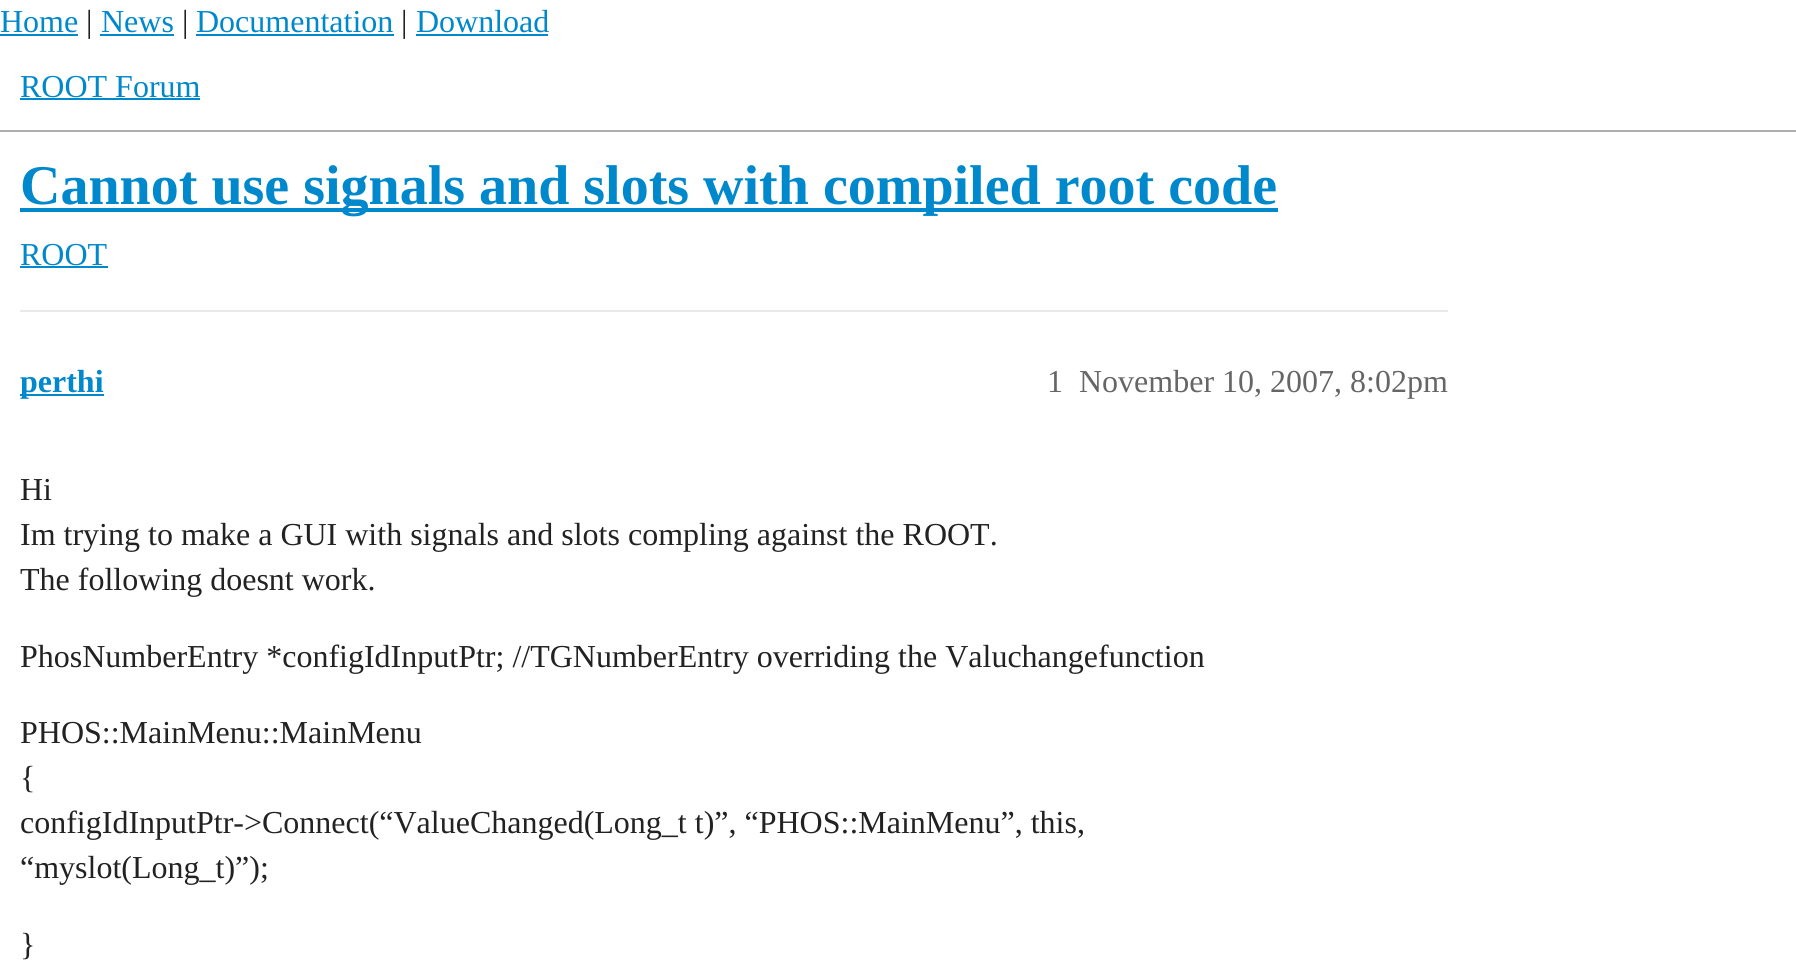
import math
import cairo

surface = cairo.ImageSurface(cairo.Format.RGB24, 1796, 971)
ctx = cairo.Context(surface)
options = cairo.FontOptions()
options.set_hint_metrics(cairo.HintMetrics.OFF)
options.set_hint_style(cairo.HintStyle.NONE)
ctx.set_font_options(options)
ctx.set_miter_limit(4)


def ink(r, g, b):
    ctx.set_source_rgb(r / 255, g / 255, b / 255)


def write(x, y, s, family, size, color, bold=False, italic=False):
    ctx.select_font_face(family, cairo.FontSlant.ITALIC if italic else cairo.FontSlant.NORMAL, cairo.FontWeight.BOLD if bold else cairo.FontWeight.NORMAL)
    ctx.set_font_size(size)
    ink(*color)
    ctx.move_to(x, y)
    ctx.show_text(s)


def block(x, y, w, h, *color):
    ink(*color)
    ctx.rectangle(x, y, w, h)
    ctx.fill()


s1 = dict(family="Liberation Serif", size=32, color=(0, 136, 204))
s2 = dict(family="Liberation Serif", size=32, color=(34, 34, 34))
s3 = dict(family="Liberation Serif", size=56, color=(0, 136, 204), bold=True)
s4 = dict(family="Liberation Serif", size=32, color=(0, 136, 204), bold=True)
s5 = dict(family="Liberation Serif", size=32, color=(102, 102, 102))

ink(255, 255, 255)
ctx.paint()
write(0, 32, "Home", **s1)
block(0, 34, 78, 2, 0, 136, 204)
write(86, 32, "|", **s2)
write(101, 32, "News", **s1)
block(100, 34, 74, 2, 0, 136, 204)
write(182, 32, "|", **s2)
write(196, 32, "Documentation", **s1)
block(196, 34, 198, 2, 0, 136, 204)
write(401, 32, "|", **s2)
write(416, 32, "Download", **s1)
block(416, 34, 132, 2, 0, 136, 204)
block(0, 130, 1796, 2, 175, 175, 175)
write(20, 97, "ROOT Forum", **s1)
block(20, 98, 180, 2, 0, 136, 204)
block(20, 208, 1258, 4, 0, 136, 204)
write(20, 204, "Cannot use signals and slots with compiled root code", **s3)
write(20, 265, "ROOT", **s1)
block(20, 266, 88, 2, 0, 136, 204)
block(20, 310, 1428, 2, 233, 233, 233)
block(20, 394, 84, 2, 0, 136, 204)
write(20, 392, "perthi", **s4)
write(1047, 392, "1", **s5)
write(1079, 392, "November 10, 2007, 8:02pm", **s5)
write(20, 500, "Hi", **s2)
write(20, 545, "Im trying to make a GUI with signals and slots compling against the ROOT.", **s2)
write(20, 590, "The following doesnt work.", **s2)
write(20, 667, "PhosNumberEntry *configIdInputPtr; //TGNumberEntry overriding the Valuchangefunction", **s2)
write(20, 743, "PHOS::MainMenu::MainMenu", **s2)
write(20, 788, "{", **s2)
write(20, 833, "configIdInputPtr->Connect(“ValueChanged(Long_t t)”, “PHOS::MainMenu”, this,", **s2)
write(20, 878, "“myslot(Long_t)”);", **s2)
write(20, 955, "}", **s2)
surface.write_to_png("screenshot.png")
